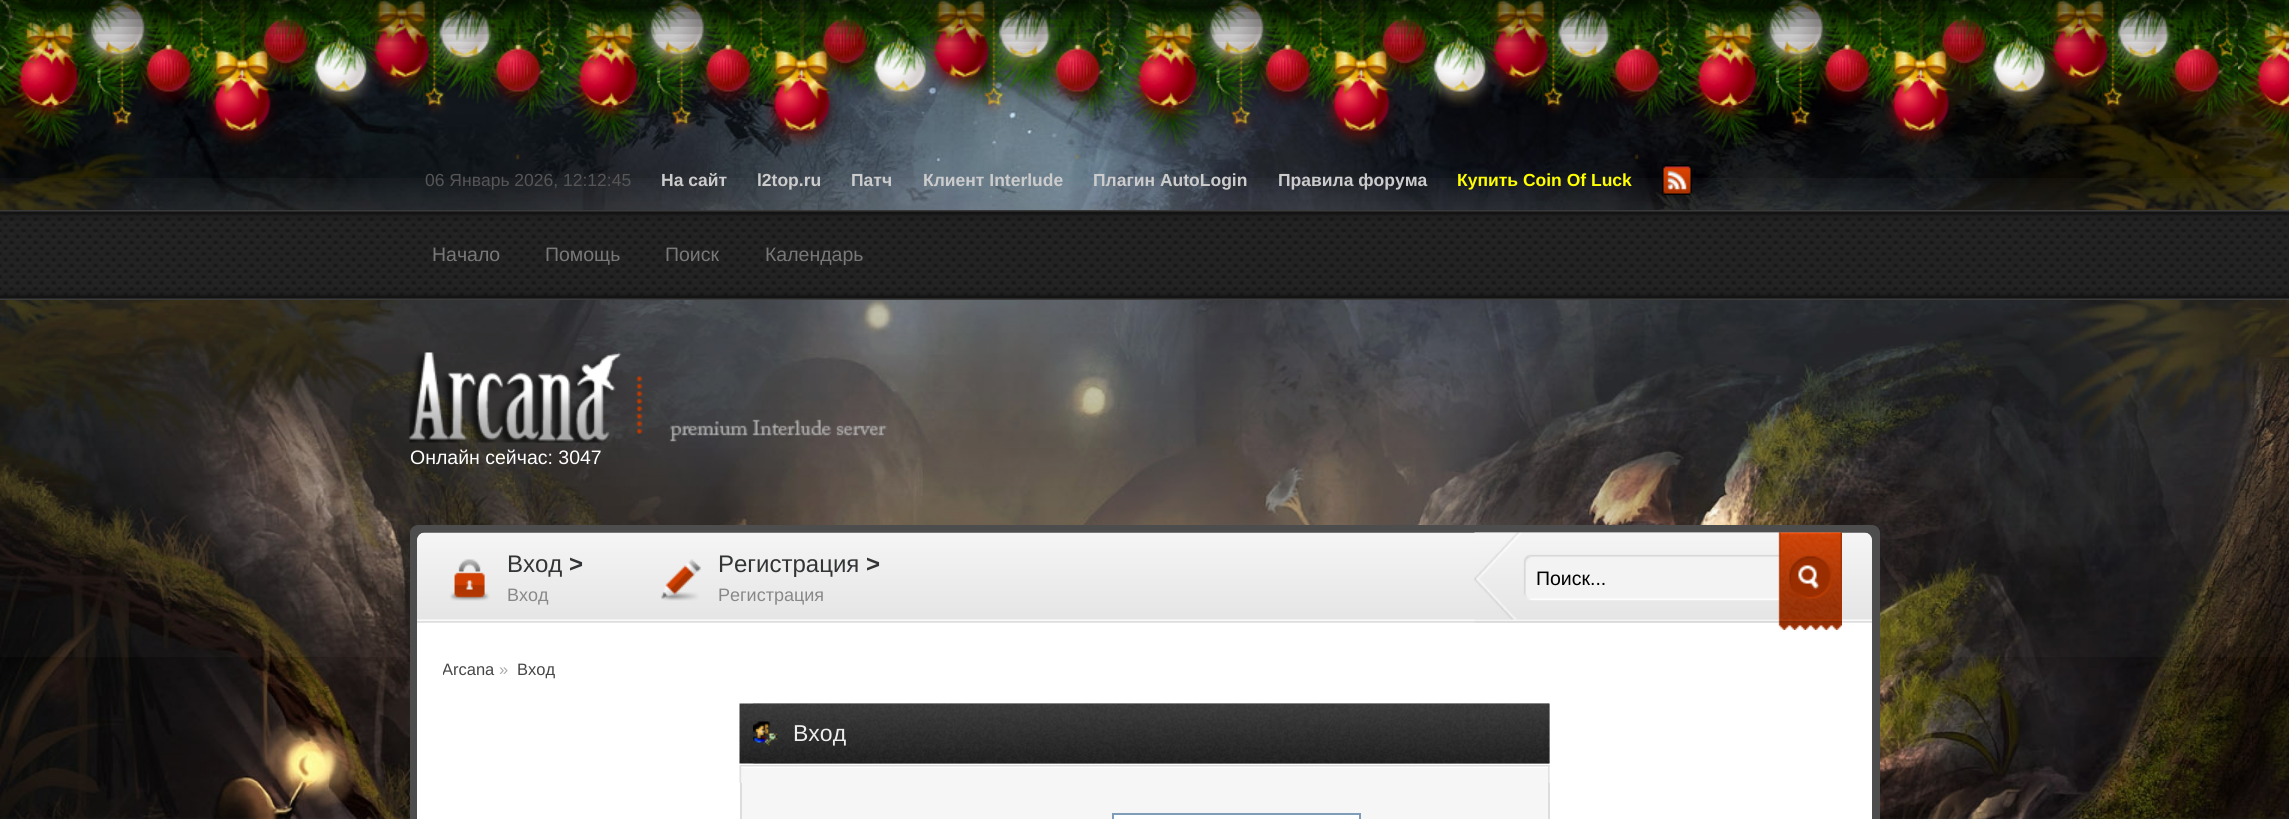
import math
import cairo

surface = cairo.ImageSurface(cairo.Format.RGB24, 2289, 819)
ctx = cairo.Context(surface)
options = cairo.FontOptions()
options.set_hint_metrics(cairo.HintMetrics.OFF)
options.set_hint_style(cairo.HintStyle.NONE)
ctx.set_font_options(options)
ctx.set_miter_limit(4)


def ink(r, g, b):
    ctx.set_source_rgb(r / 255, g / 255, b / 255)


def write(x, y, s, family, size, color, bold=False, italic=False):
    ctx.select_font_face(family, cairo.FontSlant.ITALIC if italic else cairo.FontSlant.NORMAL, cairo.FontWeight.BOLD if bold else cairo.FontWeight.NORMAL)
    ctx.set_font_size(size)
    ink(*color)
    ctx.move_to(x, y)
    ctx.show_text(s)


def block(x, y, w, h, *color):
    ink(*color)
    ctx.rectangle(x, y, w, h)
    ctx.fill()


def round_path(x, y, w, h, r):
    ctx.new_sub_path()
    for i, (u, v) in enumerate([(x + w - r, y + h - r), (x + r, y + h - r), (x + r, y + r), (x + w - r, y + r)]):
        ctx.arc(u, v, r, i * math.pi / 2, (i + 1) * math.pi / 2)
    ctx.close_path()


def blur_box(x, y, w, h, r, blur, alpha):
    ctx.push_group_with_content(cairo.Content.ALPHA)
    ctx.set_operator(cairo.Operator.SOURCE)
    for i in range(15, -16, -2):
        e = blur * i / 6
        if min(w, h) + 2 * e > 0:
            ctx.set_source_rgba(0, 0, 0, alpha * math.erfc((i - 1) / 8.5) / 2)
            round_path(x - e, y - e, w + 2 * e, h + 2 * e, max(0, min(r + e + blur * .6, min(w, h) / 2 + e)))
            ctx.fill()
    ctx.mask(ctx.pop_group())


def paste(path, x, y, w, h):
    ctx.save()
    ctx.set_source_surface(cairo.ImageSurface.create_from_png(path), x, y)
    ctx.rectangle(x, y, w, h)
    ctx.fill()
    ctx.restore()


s1 = dict(family="Liberation Sans", size=17.5, color=(85, 85, 85))
s2 = dict(family="Liberation Sans", size=17.5, color=(204, 204, 204), bold=True)
s3 = dict(family="Liberation Sans", size=17.5, color=(255, 255, 0), bold=True)
s4 = dict(family="Liberation Sans", size=19.5, color=(120, 120, 120))
s5 = dict(family="Liberation Sans", size=19.5, color=(255, 255, 255))
s6 = dict(family="Liberation Sans", size=24, color=(50, 52, 54))
s7 = dict(family="Liberation Sans", size=24, color=(50, 52, 54), bold=True)
s8 = dict(family="Liberation Sans", size=18, color=(136, 136, 136))
s9 = dict(family="Liberation Sans", size=19.5, color=(0, 0, 0))
s10 = dict(family="Liberation Sans", size=16.5, color=(70, 70, 70))
s11 = dict(family="Liberation Sans", size=16.5, color=(170, 170, 170))
s12 = dict(family="Liberation Sans", size=23, color=(238, 238, 238))

ink(255, 255, 255)
ctx.paint()
paste("pic1.png", 0, 0, 2289, 819)
paste("pic2.png", 0, 0, 2289, 160)
paste("pic4.png", 10, 0, 75, 123)
paste("pic3.png", 0, 0, 38, 106)
paste("pic6.png", 81, 0, 73, 72)
paste("pic5.png", 37, 0, 92, 40)
paste("pic7.png", 205, 0, 74, 148)
paste("pic8.png", 255, 0, 60, 77)
paste("pic14.png", 306, 9, 69, 99)
paste("pic9.png", 265, 0, 43, 46)
paste("pic11.png", 365, 0, 72, 94)
paste("pic10.png", 307, 0, 76, 75)
paste("pic12.png", 431, 0, 69, 74)
paste("pic13.png", 138, 13, 60, 93)
paste("pic17.png", 488, 15, 60, 91)
paste("pic15.png", 433, 0, 118, 42)
paste("pic16.png", 550, 0, 10, 103)
paste("pic19.png", 570, 0, 75, 123)
paste("pic18.png", 559, 0, 38, 106)
paste("pic21.png", 640, 0, 74, 72)
paste("pic20.png", 597, 0, 91, 40)
paste("pic22.png", 765, 0, 73, 147)
paste("pic23.png", 814, 0, 61, 78)
paste("pic29.png", 866, 9, 68, 98)
paste("pic24.png", 825, 0, 42, 46)
paste("pic26.png", 925, 0, 72, 94)
paste("pic25.png", 867, 0, 75, 75)
paste("pic27.png", 990, 0, 69, 74)
paste("pic28.png", 698, 13, 60, 93)
paste("pic32.png", 1048, 15, 60, 93)
paste("pic30.png", 993, 0, 117, 42)
paste("pic31.png", 1110, 0, 9, 104)
paste("pic34.png", 1130, 0, 74, 123)
paste("pic33.png", 1119, 0, 38, 106)
paste("pic36.png", 1200, 0, 73, 72)
paste("pic35.png", 1156, 0, 92, 40)
paste("pic37.png", 1324, 0, 74, 148)
paste("pic38.png", 1374, 0, 60, 77)
paste("pic44.png", 1425, 9, 69, 99)
paste("pic39.png", 1384, 0, 43, 46)
paste("pic41.png", 1484, 0, 72, 94)
paste("pic40.png", 1426, 0, 76, 75)
paste("pic42.png", 1550, 0, 69, 74)
paste("pic43.png", 1257, 13, 60, 93)
paste("pic47.png", 1607, 15, 60, 91)
paste("pic45.png", 1552, 0, 118, 42)
paste("pic46.png", 1669, 0, 10, 104)
paste("pic49.png", 1689, 0, 75, 123)
paste("pic48.png", 1678, 0, 38, 106)
paste("pic51.png", 1759, 0, 74, 72)
paste("pic50.png", 1716, 0, 91, 40)
paste("pic52.png", 1884, 0, 73, 148)
paste("pic53.png", 1933, 0, 60, 77)
paste("pic59.png", 1985, 9, 69, 99)
paste("pic54.png", 1944, 0, 42, 46)
paste("pic56.png", 2044, 0, 72, 94)
paste("pic55.png", 1986, 0, 75, 75)
paste("pic57.png", 2109, 0, 69, 74)
paste("pic58.png", 1817, 13, 59, 93)
paste("pic62.png", 2166, 15, 60, 91)
paste("pic60.png", 2112, 0, 117, 42)
paste("pic61.png", 2229, 0, 9, 104)
paste("pic64.png", 2248, 0, 41, 122)
paste("pic63.png", 2238, 0, 38, 106)
paste("pic65.png", 2275, 0, 14, 37)
ink(0, 0, 0)
blur_box(0, -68, 2289, 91, 0, 22.5, 0.75)
paste("pic66.png", 0, 178, 2289, 32)
write(425, 186, "06 Январь 2026, 12:12:45", **s1)
write(661, 186, "На сайт", **s2)
write(757, 186, "l2top.ru", **s2)
write(851, 186, "Патч", **s2)
write(923, 186, "Клиент Interlude", **s2)
write(1093, 186, "Плагин AutoLogin", **s2)
write(1278, 186, "Правила форума", **s2)
write(1457, 186, "Купить Coin Of Luck", **s3)
paste("pic67.png", 1662, 165, 30, 30)
paste("pic68.png", 0, 210, 2289, 90)
write(432, 261, "Начало", **s4)
write(545, 261, "Помощь", **s4)
write(665, 261, "Поиск", **s4)
write(765, 261, "Календарь", **s4)
paste("pic69.png", 0, 300, 2289, 357)
paste("pic70.png", 409, 352, 478, 91)
write(410, 464, "Онлайн сейчас: 3047", **s5)
ink(77, 77, 77)
round_path(410, 525, 1470, 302, 8)
ctx.fill()
ink(229, 229, 229)
ctx.new_path()
ctx.move_to(425, 533)
ctx.line_to(1864, 533)
ctx.curve_to(1868.5, 533, 1872, 536.5, 1872, 541)
ctx.line_to(1872, 623)
ctx.line_to(417, 623)
ctx.line_to(417, 541)
ctx.curve_to(417, 536.5, 420.5, 533, 425, 533)
ctx.close_path()
ctx.fill()
paste("pic71.png", 417, 532, 1455, 90)
paste("pic72.png", 450, 559, 40, 42)
write(507, 572, "Вход", **s6)
write(569, 572, ">", **s7)
write(507, 601, "Вход", **s8)
paste("pic73.png", 661, 559, 40, 42)
write(718, 572, "Регистрация", **s6)
write(866, 572, ">", **s7)
write(718, 601, "Регистрация", **s8)
block(417, 623, 1455, 196, 255, 255, 255)
paste("pic74.png", 1474, 532, 368, 98)
write(1536, 585, "Поиск...", **s9)
ctx.save()
ctx.rectangle(443, 647, 1405, 46)
ctx.clip()
write(442, 675, "Arcana", **s10)
ctx.restore()
write(499, 675, "»", **s11)
write(517, 675, "Вход", **s10)
paste("pic75.png", 739, 703, 811, 61)
paste("pic76.png", 753, 703, 797, 61)
paste("pic77.png", 753, 721, 25, 25)
write(793, 741, "Вход", **s12)
paste("pic78.png", 739, 765, 811, 18)
paste("pic79.png", 1548, 765, 2, 18)
block(742, 783, 806, 36, 246, 246, 246)
block(1548, 783, 2, 36, 221, 221, 221)
block(740, 783, 2, 36, 221, 221, 221)
ink(255, 255, 255)
ctx.rectangle(1113, 814, 247, 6)
ctx.fill_preserve()
ink(127, 157, 185)
ctx.stroke()
surface.write_to_png("screenshot.png")
